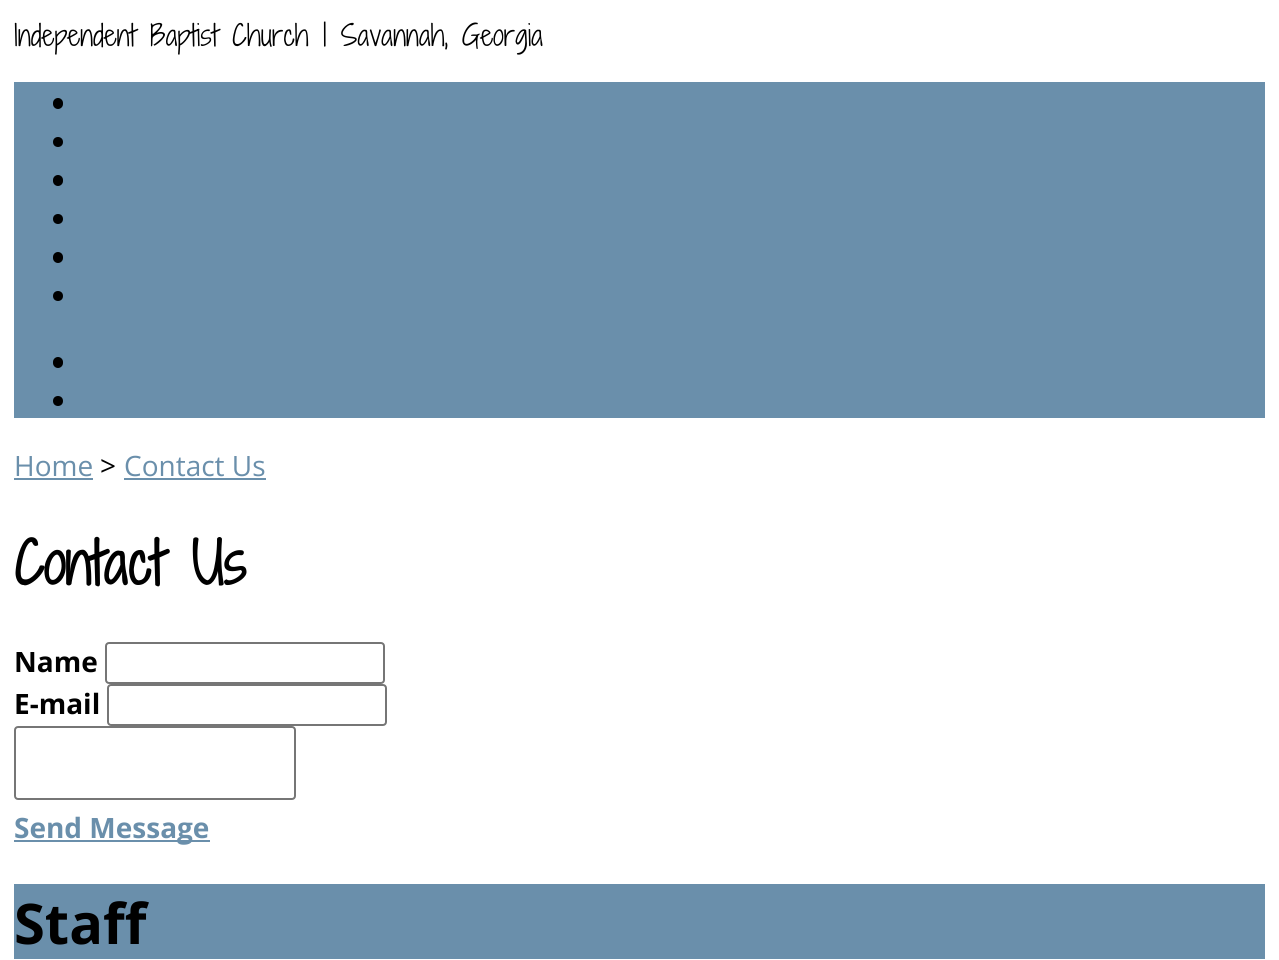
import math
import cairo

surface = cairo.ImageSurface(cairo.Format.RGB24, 1279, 960)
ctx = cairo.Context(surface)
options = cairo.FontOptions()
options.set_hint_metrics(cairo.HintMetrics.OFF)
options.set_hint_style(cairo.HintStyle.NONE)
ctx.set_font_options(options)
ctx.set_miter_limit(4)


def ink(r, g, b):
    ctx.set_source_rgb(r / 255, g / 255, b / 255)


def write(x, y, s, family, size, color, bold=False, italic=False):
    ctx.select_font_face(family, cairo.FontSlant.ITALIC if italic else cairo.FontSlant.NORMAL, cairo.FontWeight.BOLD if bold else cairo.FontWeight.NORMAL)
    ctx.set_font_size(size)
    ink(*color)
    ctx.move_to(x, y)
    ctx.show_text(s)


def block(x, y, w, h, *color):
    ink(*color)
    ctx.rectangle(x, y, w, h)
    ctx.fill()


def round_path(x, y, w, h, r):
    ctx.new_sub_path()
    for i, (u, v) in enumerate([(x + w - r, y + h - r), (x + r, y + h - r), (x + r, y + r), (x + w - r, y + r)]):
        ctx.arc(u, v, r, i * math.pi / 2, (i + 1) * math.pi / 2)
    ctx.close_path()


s1 = dict(family="Shadows Into Light Two Light", size=28, color=(0, 0, 0))
s2 = dict(family="Open Sans", size=28, color=(106, 143, 171))
s3 = dict(family="Open Sans", size=28, color=(0, 0, 0))
s4 = dict(family="Shadows Into Light Two", size=56, color=(0, 0, 0), bold=True)
s5 = dict(family="Open Sans", size=28, color=(0, 0, 0), bold=True)
s6 = dict(family="Open Sans", size=28, color=(106, 143, 171), bold=True)
s7 = dict(family="Open Sans", size=56, color=(0, 0, 0), bold=True)

ink(255, 255, 255)
ctx.paint()
write(14, 46, "Independent Baptist Church | Savannah, Georgia", **s1)
block(14, 82, 1251, 336, 106, 143, 171)
ink(0, 0, 0)
round_path(53, 98, 10, 11, 5)
ctx.fill()
ctx.arc(58, 142, 5, 0, 2 * math.pi)
ctx.fill()
round_path(53, 175, 10, 11, 5)
ctx.fill()
ctx.arc(58, 219, 5, 0, 2 * math.pi)
ctx.fill()
round_path(53, 252, 10, 11, 5)
ctx.fill()
ctx.arc(58, 296, 5, 0, 2 * math.pi)
ctx.fill()
round_path(53, 357, 10, 11, 5)
ctx.fill()
ctx.arc(58, 401, 5, 0, 2 * math.pi)
ctx.fill()
write(14, 476, "Home", **s2)
block(14, 478, 79, 2, 106, 143, 171)
write(100, 476, ">", **s3)
write(124, 476, "Contact Us", **s2)
block(124, 478, 142, 2, 106, 143, 171)
write(14, 585, "Contact Us", **s4)
write(14, 672, "Name", **s5)
round_path(106, 643, 278, 40, 3)
ink(118, 118, 118)
ctx.stroke()
write(14, 714, "E-mail", **s5)
round_path(108, 685, 278, 40, 3)
ink(118, 118, 118)
ctx.stroke()
round_path(15, 727, 280, 72, 3)
ctx.stroke()
block(14, 840, 196, 2, 106, 143, 171)
write(14, 838, "Send Message", **s6)
block(14, 884, 1251, 75, 106, 143, 171)
write(14, 944, "Staff", **s7)
surface.write_to_png("screenshot.png")
